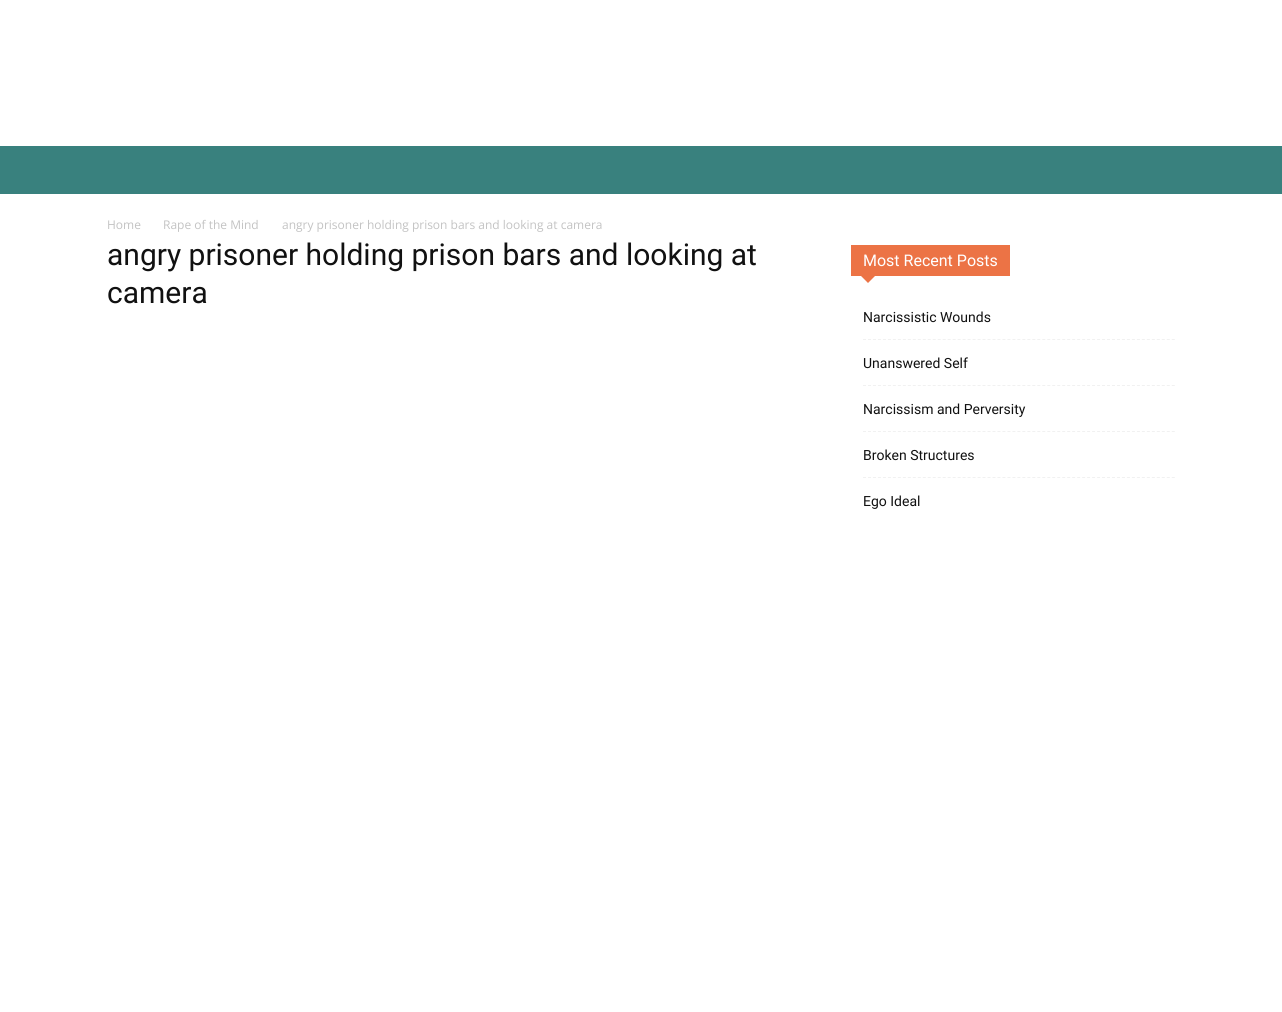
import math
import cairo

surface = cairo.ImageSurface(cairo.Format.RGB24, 1282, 1012)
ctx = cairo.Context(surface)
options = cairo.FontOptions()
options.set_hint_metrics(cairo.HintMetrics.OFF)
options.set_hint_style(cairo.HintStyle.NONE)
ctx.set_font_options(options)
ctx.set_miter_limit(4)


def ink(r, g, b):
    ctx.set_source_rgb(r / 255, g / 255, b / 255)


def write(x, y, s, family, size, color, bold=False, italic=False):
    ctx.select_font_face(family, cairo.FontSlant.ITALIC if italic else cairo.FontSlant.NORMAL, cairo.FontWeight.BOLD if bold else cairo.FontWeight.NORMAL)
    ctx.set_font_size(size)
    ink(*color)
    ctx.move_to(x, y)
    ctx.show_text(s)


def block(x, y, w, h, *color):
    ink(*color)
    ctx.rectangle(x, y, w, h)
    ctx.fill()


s1 = dict(family="Open Sans", size=12, color=(195, 195, 195))
s2 = dict(family="Roboto", size=30, color=(17, 17, 17))
s3 = dict(family="Roboto", size=16, color=(255, 255, 255))
s4 = dict(family="Roboto", size=14, color=(17, 17, 17))

ink(255, 255, 255)
ctx.paint()
block(0, 146, 1282, 48, 57, 129, 126)
write(107, 229, "Home", **s1)
write(163, 229, "Rape of the Mind", **s1)
write(282, 229, "angry prisoner holding prison bars and looking at camera", **s1)
write(107, 265, "angry prisoner holding prison bars and looking at", **s2)
write(107, 303, "camera", **s2)
block(851, 245, 159, 31, 236, 115, 69)
write(863, 266, "Most Recent Posts", **s3)
ink(236, 115, 69)
ctx.new_path()
ctx.move_to(861, 276)
ctx.line_to(875, 276)
ctx.line_to(868, 283)
ctx.close_path()
ctx.fill()
ctx.new_path()
ctx.move_to(863, 339.5)
ctx.line_to(1175, 339.5)
ink(241, 241, 241)
ctx.set_line_width(1)
ctx.set_dash([3, 1.98])
ctx.stroke()
write(863, 322, "Narcissistic Wounds", **s4)
ctx.new_path()
ctx.move_to(863, 385.5)
ctx.line_to(1175, 385.5)
ink(241, 241, 241)
ctx.stroke()
write(863, 368, "Unanswered Self", **s4)
ctx.new_path()
ctx.move_to(863, 431.5)
ctx.line_to(1175, 431.5)
ink(241, 241, 241)
ctx.stroke()
write(863, 414, "Narcissism and Perversity", **s4)
ctx.new_path()
ctx.move_to(863, 477.5)
ctx.line_to(1175, 477.5)
ink(241, 241, 241)
ctx.stroke()
write(863, 460, "Broken Structures", **s4)
write(863, 506, "Ego Ideal", **s4)
surface.write_to_png("screenshot.png")
